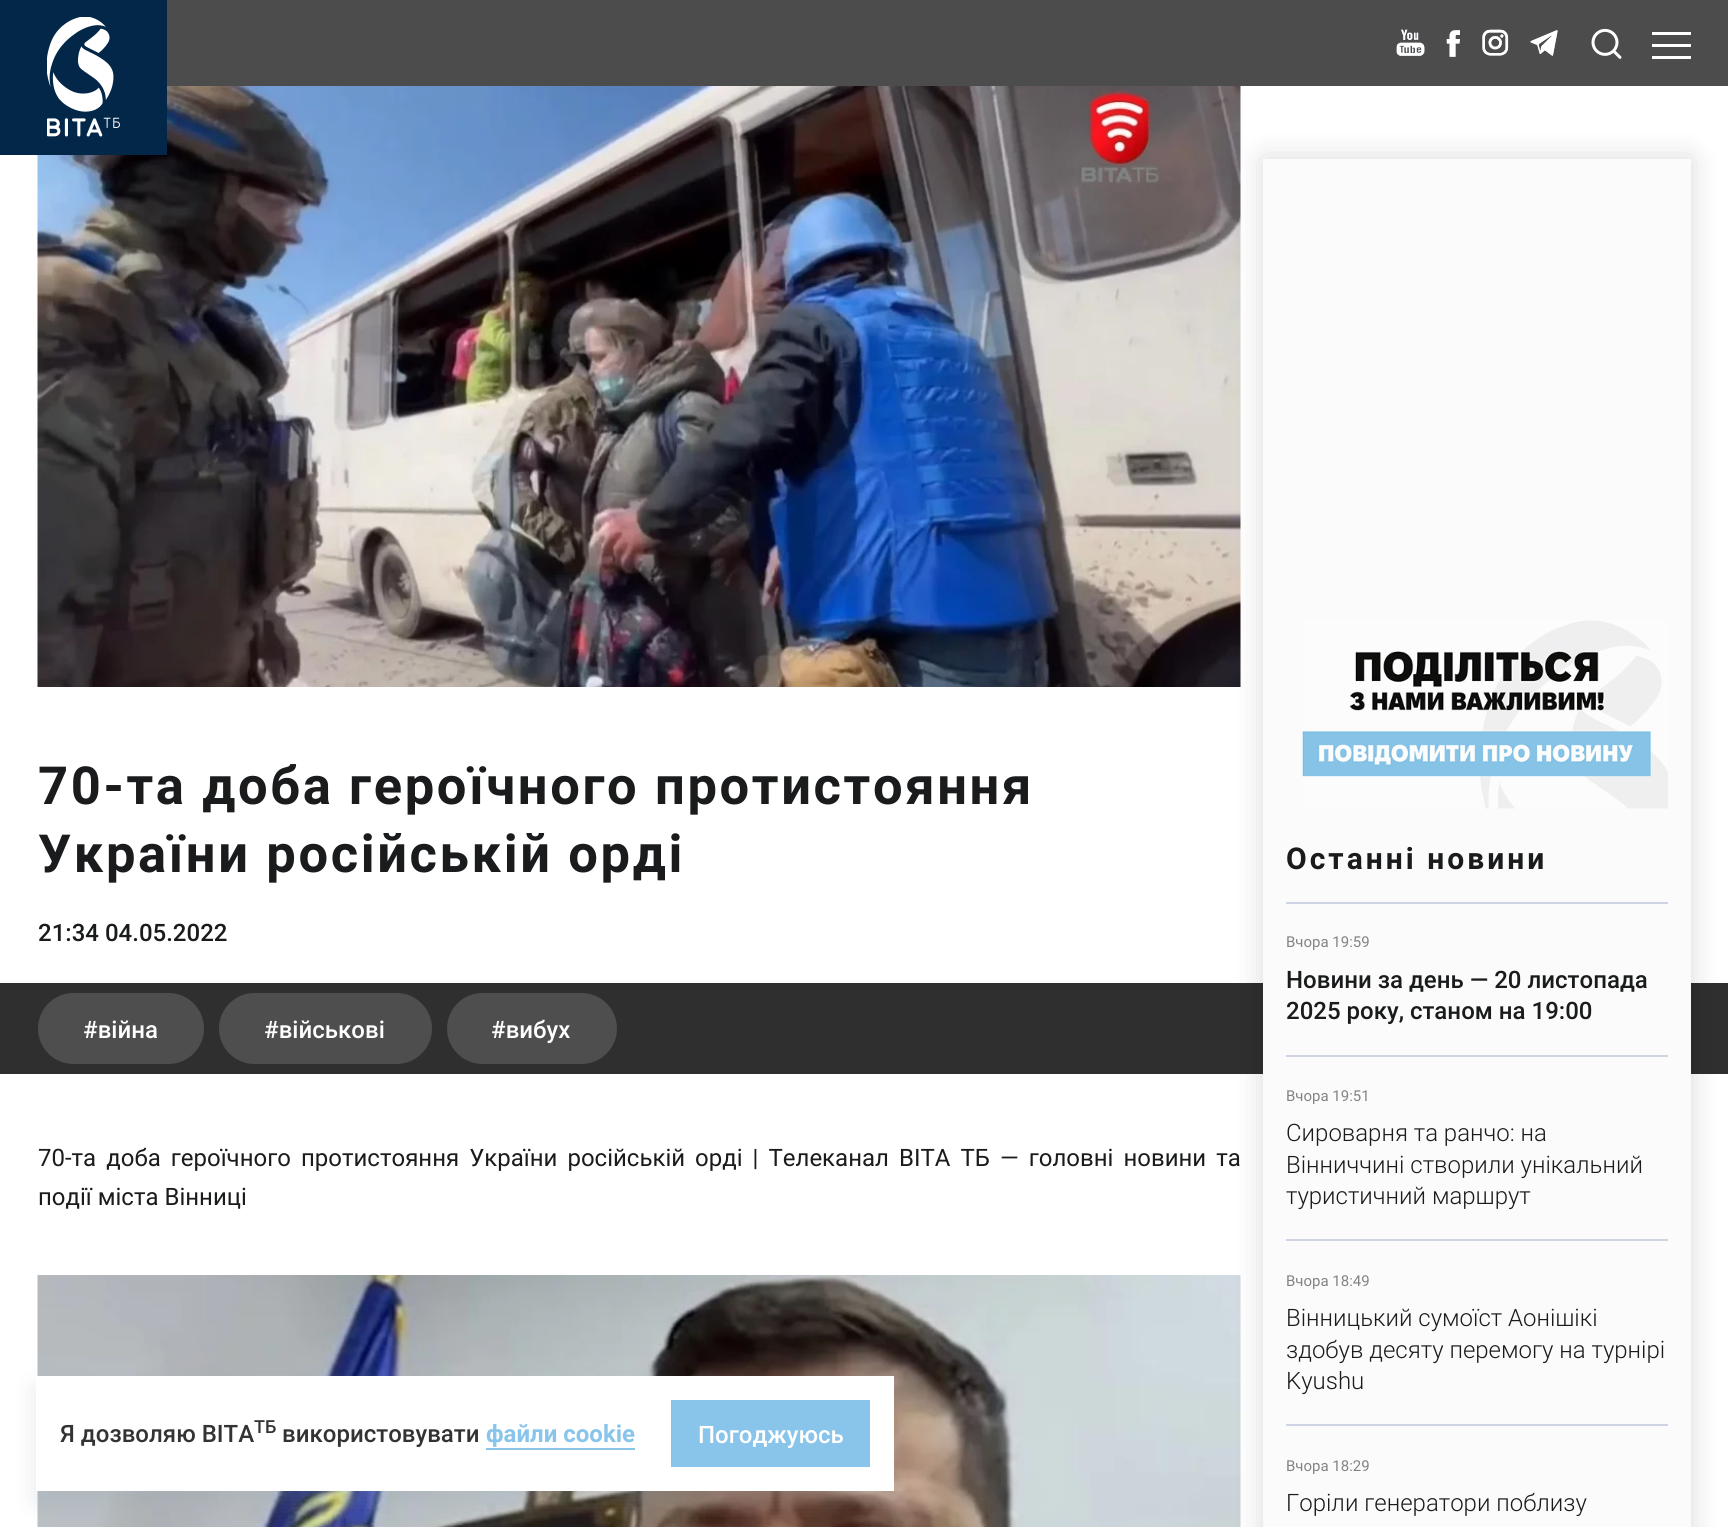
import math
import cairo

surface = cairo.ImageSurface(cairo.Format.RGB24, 1728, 1527)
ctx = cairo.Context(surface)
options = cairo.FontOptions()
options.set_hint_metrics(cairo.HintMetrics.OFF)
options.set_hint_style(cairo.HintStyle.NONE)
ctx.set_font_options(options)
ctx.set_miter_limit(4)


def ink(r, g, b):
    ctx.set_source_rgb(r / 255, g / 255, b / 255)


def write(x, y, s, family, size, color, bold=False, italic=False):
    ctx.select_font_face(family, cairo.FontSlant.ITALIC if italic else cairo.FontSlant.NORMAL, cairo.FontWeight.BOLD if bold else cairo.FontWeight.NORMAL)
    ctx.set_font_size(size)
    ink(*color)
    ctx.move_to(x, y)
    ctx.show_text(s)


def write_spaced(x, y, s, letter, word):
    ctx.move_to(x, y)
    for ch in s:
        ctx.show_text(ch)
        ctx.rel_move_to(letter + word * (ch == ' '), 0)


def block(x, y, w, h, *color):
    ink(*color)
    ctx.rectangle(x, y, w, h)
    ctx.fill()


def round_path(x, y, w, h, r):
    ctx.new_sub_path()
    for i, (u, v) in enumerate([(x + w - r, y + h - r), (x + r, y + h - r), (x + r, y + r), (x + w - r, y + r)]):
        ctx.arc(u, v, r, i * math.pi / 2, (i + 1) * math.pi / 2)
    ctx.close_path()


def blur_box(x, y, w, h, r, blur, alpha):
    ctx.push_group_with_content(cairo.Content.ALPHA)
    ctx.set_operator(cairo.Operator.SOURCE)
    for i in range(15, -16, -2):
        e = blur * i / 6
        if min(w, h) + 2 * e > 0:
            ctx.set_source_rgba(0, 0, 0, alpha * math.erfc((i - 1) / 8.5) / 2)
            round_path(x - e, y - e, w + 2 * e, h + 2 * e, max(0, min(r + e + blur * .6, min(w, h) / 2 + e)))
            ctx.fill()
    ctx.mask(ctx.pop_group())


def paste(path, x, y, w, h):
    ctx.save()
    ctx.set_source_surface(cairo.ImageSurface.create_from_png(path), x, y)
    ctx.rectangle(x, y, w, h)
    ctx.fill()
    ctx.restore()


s1 = dict(family="Roboto Medium", size=24, color=(25, 27, 28))
s2 = dict(family="Roboto Medium", size=24, color=(255, 255, 255))
s3 = dict(family="Roboto", size=24, color=(25, 27, 28))
s4 = dict(family="Roboto", size=15, color=(131, 131, 131))
s5 = dict(family="Roboto Light", size=24, color=(25, 27, 28))
s6 = dict(family="Roboto Medium", size=24, color=(51, 51, 51))
s7 = dict(family="Roboto Medium", size=18, color=(51, 51, 51))
s8 = dict(family="Roboto", size=24, color=(137, 197, 234), bold=True)

ink(255, 255, 255)
ctx.paint()
block(167, 0, 1561, 86, 76, 76, 76)
paste("pic7.png", 37, 86, 1204, 601)
block(0, 0, 167, 155, 2, 39, 72)
paste("pic1.png", 47, 17, 73, 120)
paste("pic2.png", 1396, 29, 29, 27)
paste("pic3.png", 1446, 30, 14, 27)
paste("pic4.png", 1482, 29, 27, 27)
paste("pic5.png", 1530, 30, 28, 26)
paste("pic6.png", 1591, 28, 31, 31)
block(1652, 44, 39, 3, 255, 255, 255)
block(1652, 32, 39, 3, 255, 255, 255)
block(1652, 56, 39, 3, 255, 255, 255)
ctx.select_font_face("Roboto", cairo.FontSlant.NORMAL, cairo.FontWeight.BOLD)
ctx.set_font_size(52.5)
ink(25, 27, 28)
write_spaced(38, 804, "70-та доба героїчного протистояння", 2.6, 0)
write_spaced(38, 872, "України російській орді", 2.6, 0)
write(38, 941, "21:34 04.05.2022", **s1)
block(0, 983, 1728, 91, 47, 47, 47)
ink(78, 78, 78)
round_path(38, 993, 166, 71, 35.5)
ctx.fill()
write(83, 1038, "#війна", **s2)
ink(78, 78, 78)
round_path(219, 993, 213, 71, 35.5)
ctx.fill()
write(264, 1038, "#військові", **s2)
ink(78, 78, 78)
round_path(447, 993, 170, 71, 35.5)
ctx.fill()
write(491, 1038, "#вибух", **s2)
ctx.select_font_face("Roboto")
ink(25, 27, 28)
write_spaced(38, 1166, "70-та доба героїчного протистояння України російській орді | Телеканал ВІТА ТБ — головні новини та", 0, 4.1)
write(38, 1205, "події міста Вінниці", **s3)
paste("pic8.png", 37, 1275, 1204, 252)
ink(0, 0, 0)
blur_box(1263, 159, 428, 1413, 0, 15, 0.15)
block(1263, 159, 428, 1368, 251, 251, 251)
paste("pic9.png", 1302, 620, 366, 189)
ctx.select_font_face("Roboto", cairo.FontSlant.NORMAL, cairo.FontWeight.BOLD)
ctx.set_font_size(30)
ink(25, 27, 28)
write_spaced(1286, 869, "Останні новини", 3, 0)
block(1286, 902, 382, 2, 206, 212, 228)
block(1286, 1055, 382, 2, 206, 212, 228)
write(1286, 947, "Вчора 19:59", **s4)
write(1286, 988, "Новини за день — 20 листопада", **s1)
write(1286, 1019, "2025 року, станом на 19:00", **s1)
block(1286, 1239, 382, 2, 206, 212, 228)
write(1286, 1101, "Вчора 19:51", **s4)
write(1286, 1141, "Сироварня та ранчо: на", **s5)
write(1286, 1173, "Вінниччині створили унікальний", **s5)
write(1286, 1204, "туристичний маршрут", **s5)
block(1286, 1424, 382, 2, 206, 212, 228)
write(1286, 1286, "Вчора 18:49", **s4)
write(1286, 1326, "Вінницький сумоїст Аонішікі", **s5)
write(1286, 1358, "здобув десяту перемогу на турнірі", **s5)
write(1286, 1389, "Kyushu", **s5)
write(1286, 1471, "Вчора 18:29", **s4)
write(1286, 1511, "Горіли генератори поблизу", **s5)
ink(145, 158, 171)
blur_box(36, 1388, 858, 115, 0, 12, 0.24)
block(36, 1376, 858, 115, 255, 255, 255)
write(60, 1442, "Я дозволяю ВІТА", **s6)
write(254, 1433, "ТБ", **s7)
write(282, 1442, "використовувати", **s6)
write(486, 1442, "файли cookie", **s8)
block(486, 1448, 149, 2, 137, 197, 234)
ctx.rectangle(672, 1401, 197, 65)
ctx.stroke()
block(673, 1402, 195, 63, 137, 197, 234)
write(698, 1443, "Погоджуюсь", **s2)
surface.write_to_png("screenshot.png")
